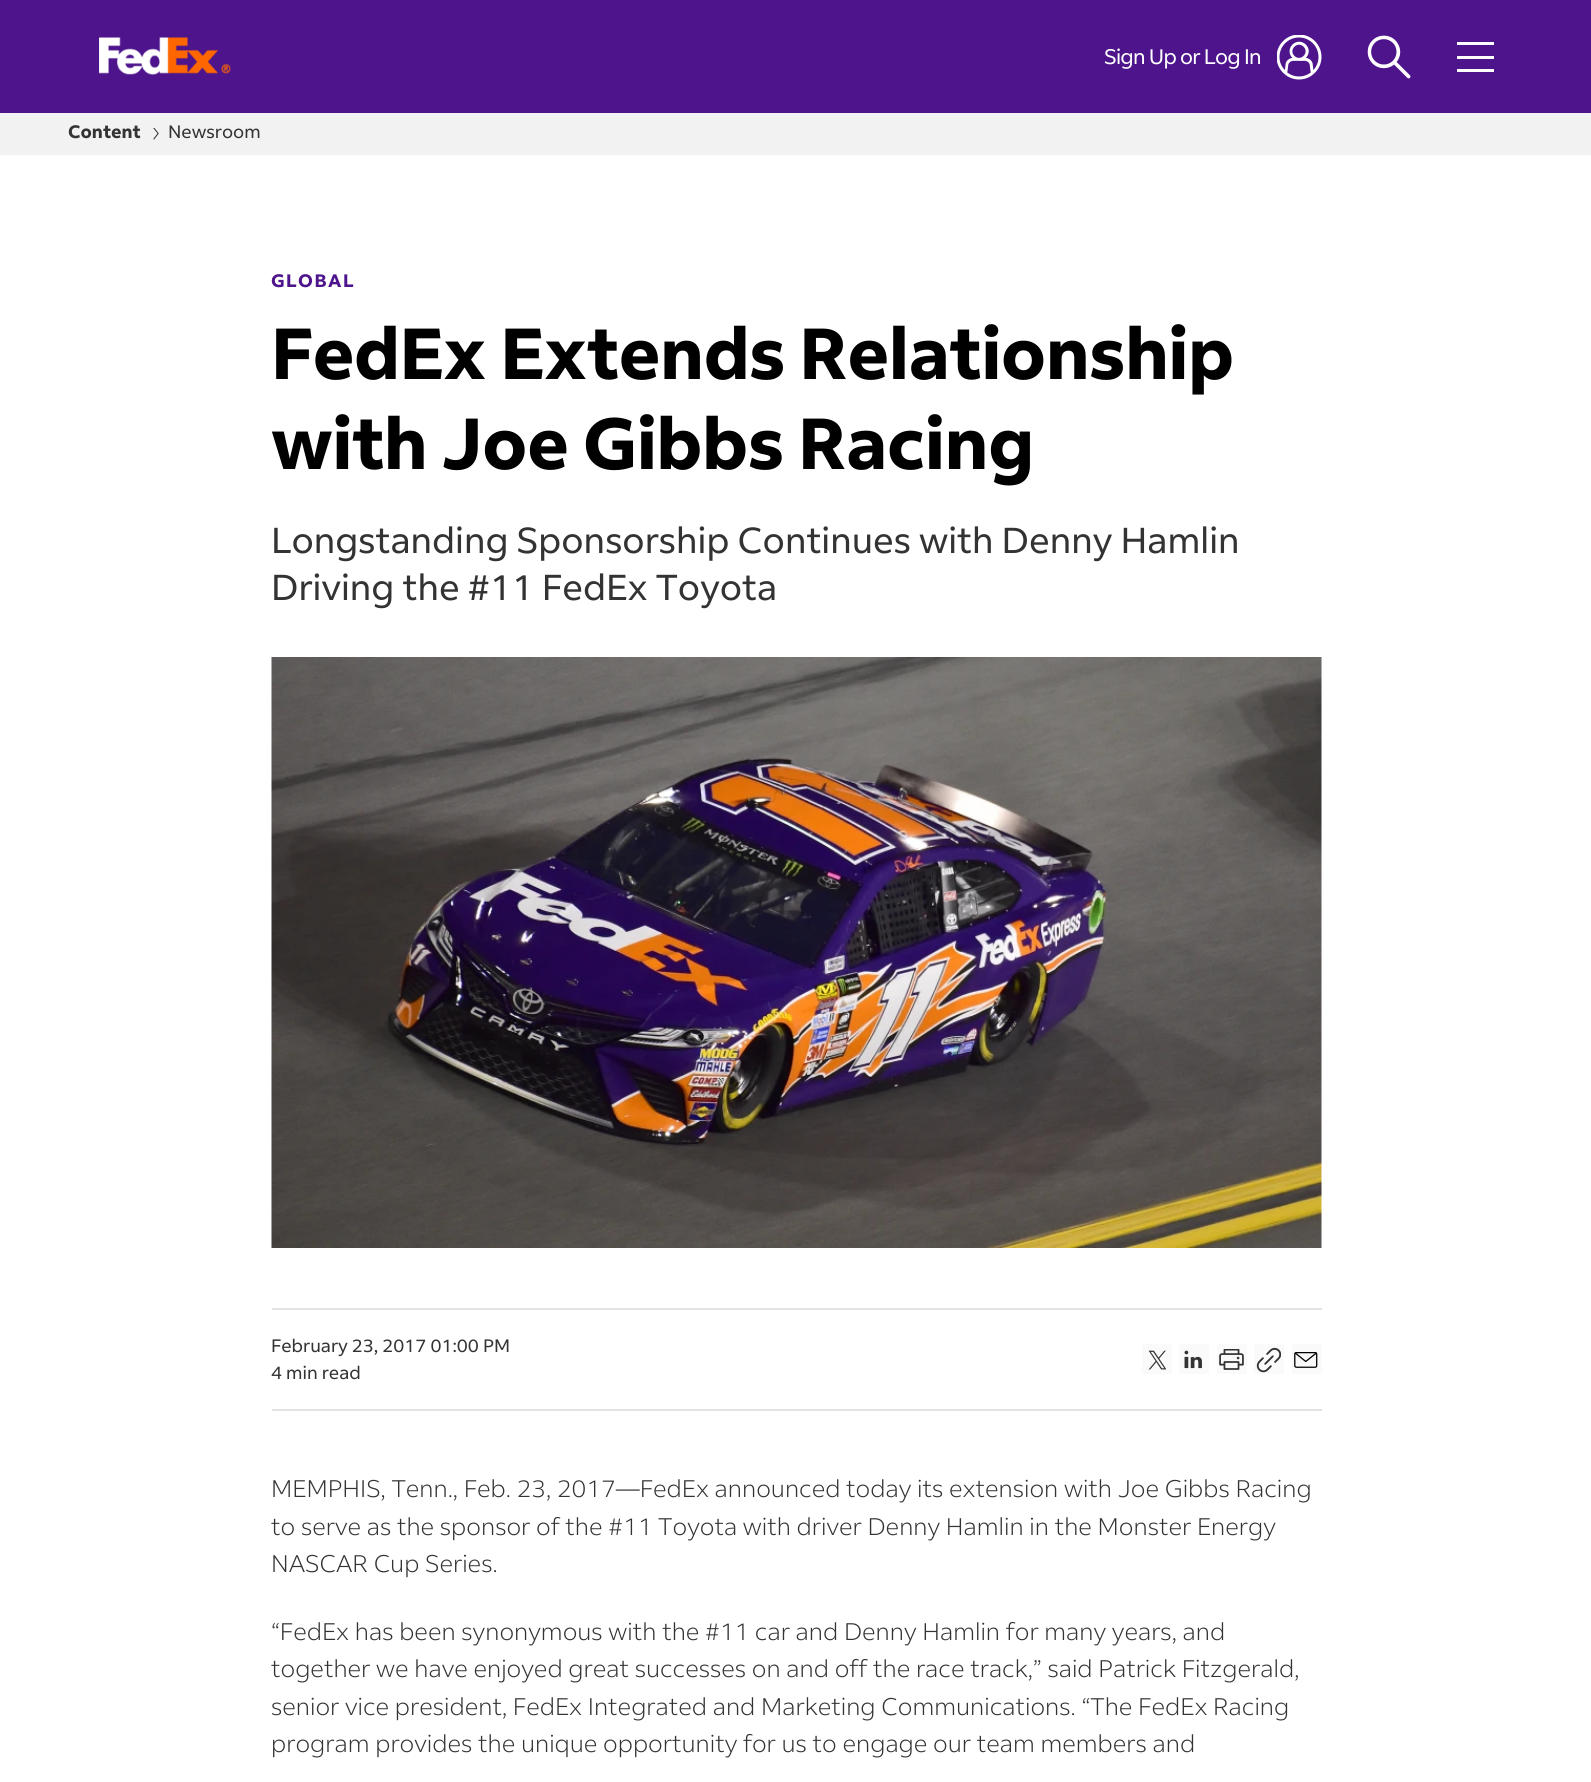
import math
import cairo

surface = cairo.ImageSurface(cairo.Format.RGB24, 1591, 1782)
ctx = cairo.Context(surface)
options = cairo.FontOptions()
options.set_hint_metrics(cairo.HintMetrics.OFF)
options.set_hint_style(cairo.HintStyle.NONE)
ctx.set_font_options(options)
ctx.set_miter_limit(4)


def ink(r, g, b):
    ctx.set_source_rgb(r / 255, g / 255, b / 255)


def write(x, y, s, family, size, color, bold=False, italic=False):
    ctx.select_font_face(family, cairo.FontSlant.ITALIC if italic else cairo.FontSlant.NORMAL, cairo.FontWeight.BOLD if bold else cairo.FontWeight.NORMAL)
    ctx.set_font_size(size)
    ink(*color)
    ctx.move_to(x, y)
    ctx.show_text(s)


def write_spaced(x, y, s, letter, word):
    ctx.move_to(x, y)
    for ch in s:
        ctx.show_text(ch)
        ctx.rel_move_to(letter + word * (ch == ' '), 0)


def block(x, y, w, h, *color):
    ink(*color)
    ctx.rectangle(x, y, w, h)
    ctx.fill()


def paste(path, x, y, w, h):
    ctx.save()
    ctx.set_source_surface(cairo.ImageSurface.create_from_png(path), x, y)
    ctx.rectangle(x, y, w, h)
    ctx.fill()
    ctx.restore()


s1 = dict(family="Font", size=18, color=(51, 51, 51), bold=True)
s2 = dict(family="Font", size=18, color=(51, 51, 51))
s3 = dict(family="Font", size=36, color=(51, 51, 51))
s4 = dict(family="Font Light", size=24, color=(51, 51, 51))

ink(255, 255, 255)
ctx.paint()
block(0, 0, 1591, 113, 77, 20, 140)
paste("pic1.png", 99, 37, 132, 38)
ctx.select_font_face("Font")
ctx.set_font_size(21)
ink(255, 255, 255)
write_spaced(1104, 64, "Sign Up or Log In", -0.75, 0)
paste("pic2.png", 1277, 35, 45, 45)
paste("pic3.png", 1367, 35, 44, 44)
block(1457, 42, 37, 3, 255, 255, 255)
block(1457, 56, 37, 3, 255, 255, 255)
block(1457, 69, 37, 3, 255, 255, 255)
block(0, 113, 1591, 42, 242, 242, 242)
write(68, 138, "Content", **s1)
paste("pic4.png", 153, 128, 6, 12)
write(168, 138, "Newsroom", **s2)
ctx.select_font_face("Font", cairo.FontSlant.NORMAL, cairo.FontWeight.BOLD)
ink(77, 20, 140)
write_spaced(271, 287, "GLOBAL", 1.5, 0)
ctx.set_font_size(72)
ink(0, 0, 0)
write_spaced(271, 379, "FedEx Extends Relationship", -0.6, 0)
write_spaced(271, 469, "with Joe Gibbs Racing", -0.6, 0)
write(271, 553, "Longstanding Sponsorship Continues with Denny Hamlin", **s3)
write(271, 600, "Driving the #11 FedEx Toyota", **s3)
paste("pic5.png", 271, 657, 1051, 591)
block(272, 1308, 1050, 2, 227, 227, 227)
block(272, 1409, 1050, 2, 227, 227, 227)
write(271, 1352, "February 23, 2017 01:00 PM", **s2)
write(271, 1379, "4 min read", **s2)
block(1142, 1344, 30, 30, 250, 250, 250)
paste("pic6.png", 1148, 1350, 18, 20)
block(1179, 1344, 30, 30, 250, 250, 250)
paste("pic7.png", 1184, 1350, 18, 19)
block(1217, 1344, 30, 30, 250, 250, 250)
paste("pic8.png", 1219, 1349, 25, 21)
block(1254, 1344, 30, 30, 250, 250, 250)
paste("pic9.png", 1256, 1347, 25, 26)
block(1292, 1344, 30, 30, 250, 250, 250)
paste("pic10.png", 1294, 1352, 24, 16)
write(271, 1497, "MEMPHIS, Tenn., Feb. 23, 2017—FedEx announced today its extension with Joe Gibbs Racing", **s4)
write(271, 1535, "to serve as the sponsor of the #11 Toyota with driver Denny Hamlin in the Monster Energy", **s4)
write(271, 1572, "NASCAR Cup Series.", **s4)
write(271, 1640, "“FedEx has been synonymous with the #11 car and Denny Hamlin for many years, and", **s4)
write(271, 1677, "together we have enjoyed great successes on and off the race track,” said Patrick Fitzgerald,", **s4)
write(271, 1715, "senior vice president, FedEx Integrated and Marketing Communications. “The FedEx Racing", **s4)
write(271, 1752, "program provides the unique opportunity for us to engage our team members and", **s4)
surface.write_to_png("screenshot.png")
